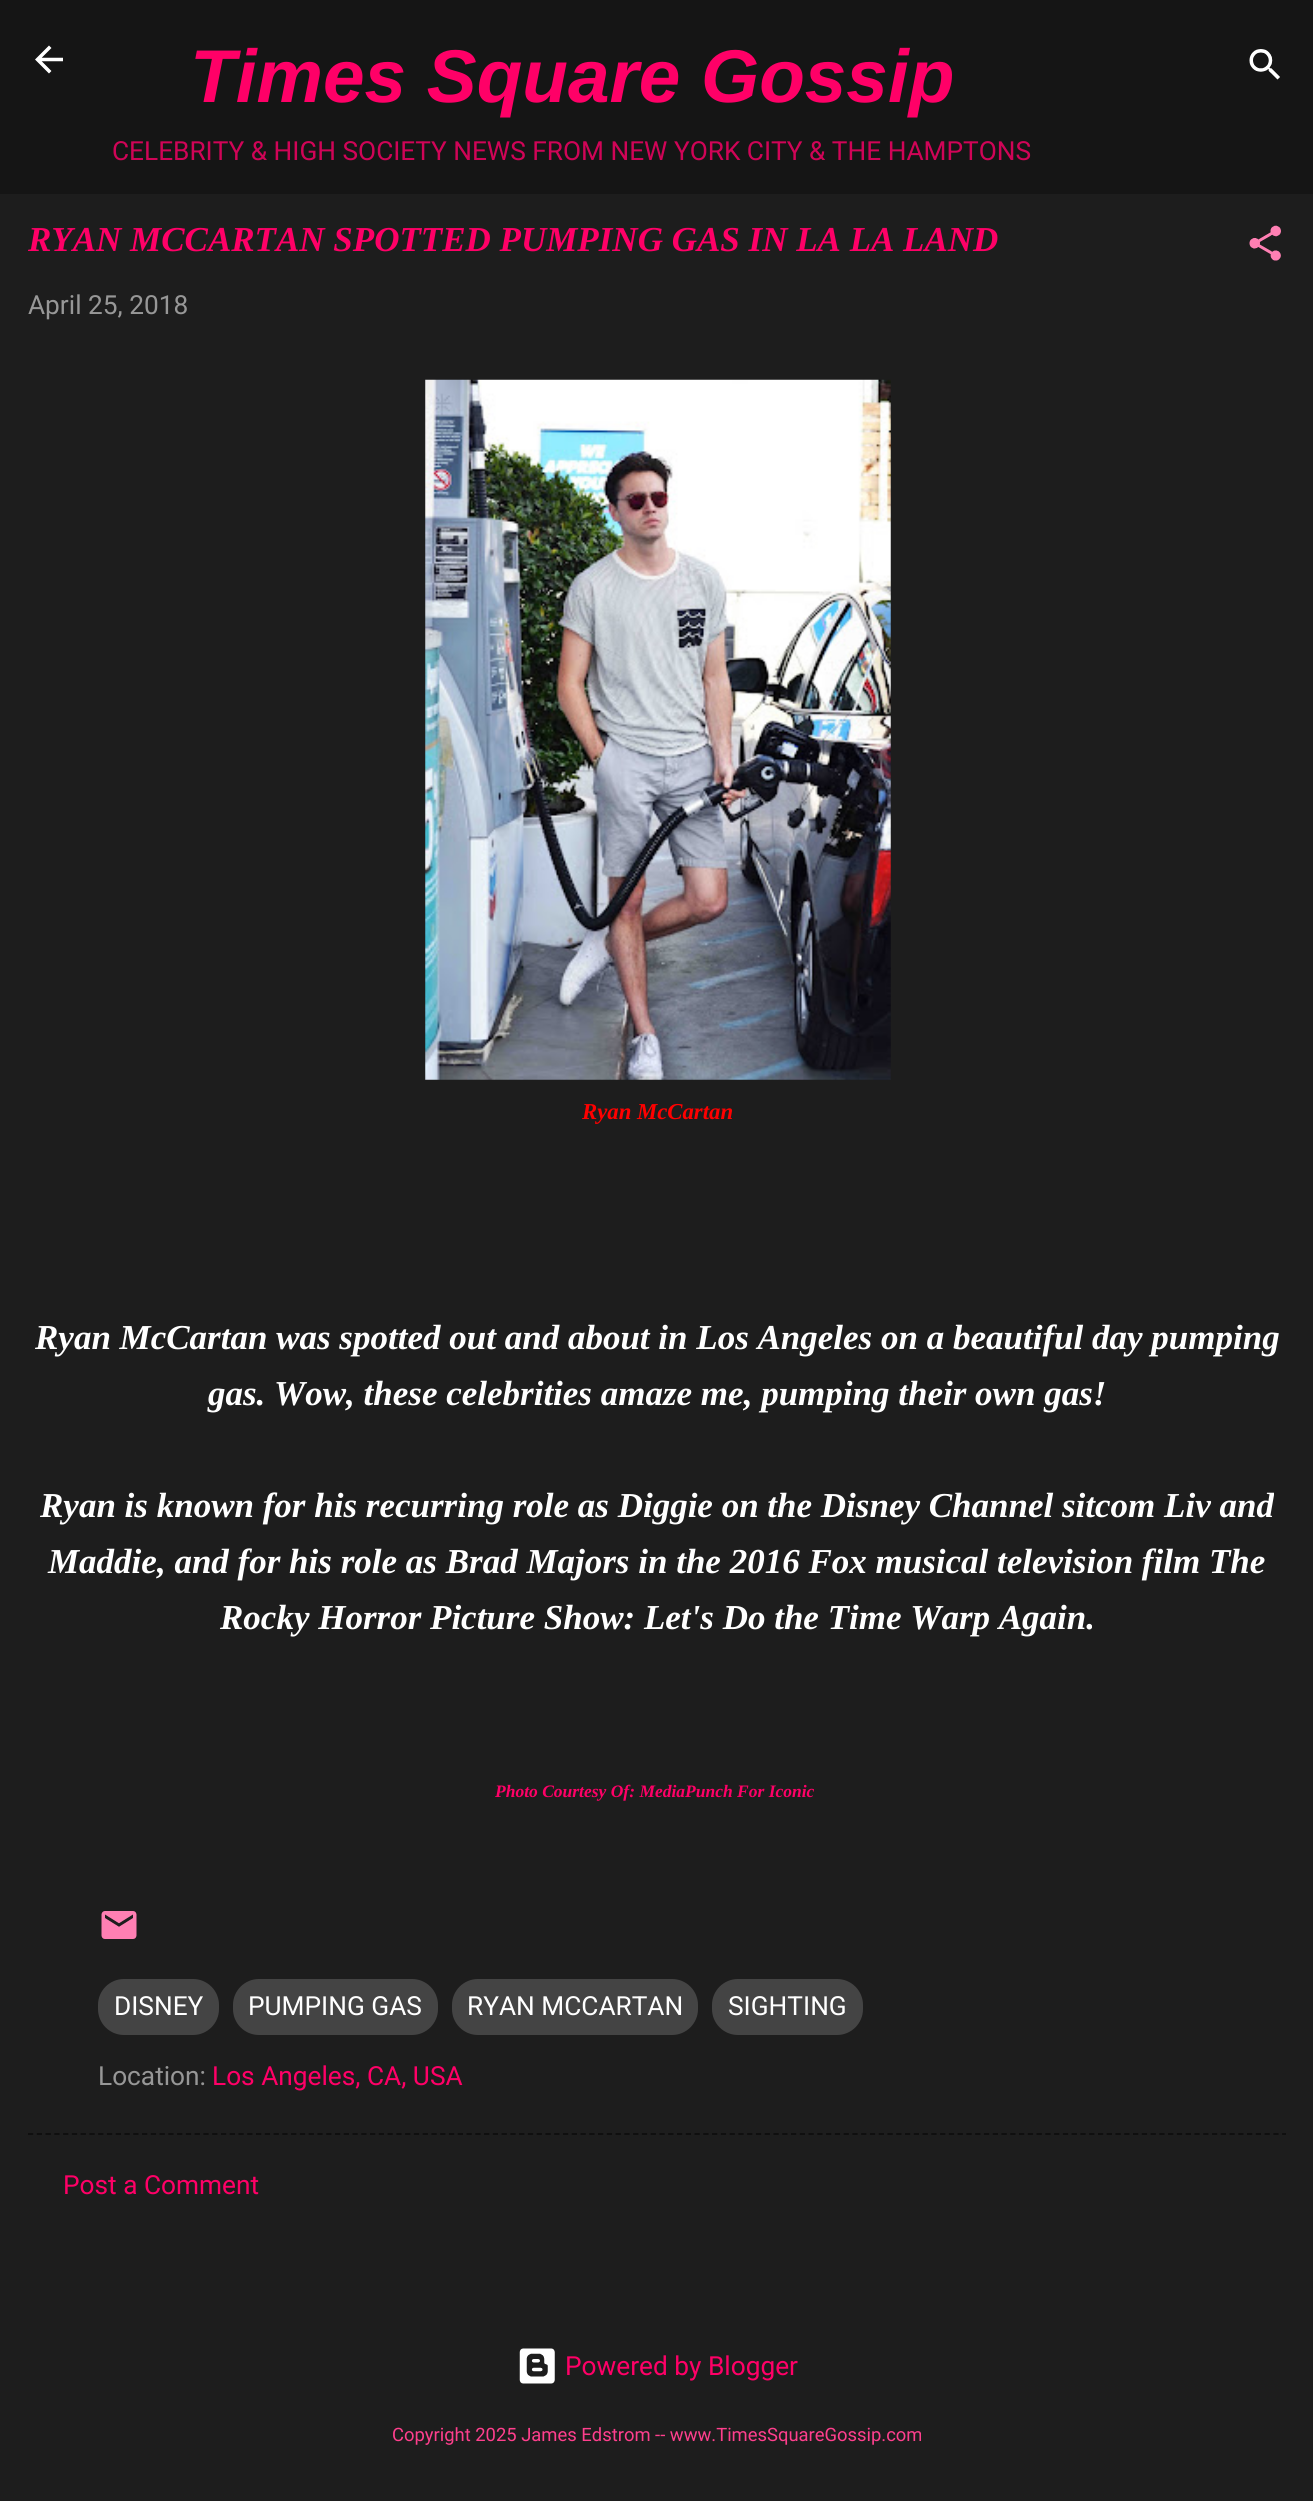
import math
import cairo

surface = cairo.ImageSurface(cairo.Format.RGB24, 1313, 2501)
ctx = cairo.Context(surface)
options = cairo.FontOptions()
options.set_hint_metrics(cairo.HintMetrics.OFF)
options.set_hint_style(cairo.HintStyle.NONE)
ctx.set_font_options(options)
ctx.set_miter_limit(4)


def ink(r, g, b):
    ctx.set_source_rgb(r / 255, g / 255, b / 255)


def write(x, y, s, family, size, color, bold=False, italic=False):
    ctx.select_font_face(family, cairo.FontSlant.ITALIC if italic else cairo.FontSlant.NORMAL, cairo.FontWeight.BOLD if bold else cairo.FontWeight.NORMAL)
    ctx.set_font_size(size)
    ink(*color)
    ctx.move_to(x, y)
    ctx.show_text(s)


def block(x, y, w, h, *color):
    ink(*color)
    ctx.rectangle(x, y, w, h)
    ctx.fill()


def round_path(x, y, w, h, r):
    ctx.new_sub_path()
    for i, (u, v) in enumerate([(x + w - r, y + h - r), (x + r, y + h - r), (x + r, y + r), (x + w - r, y + r)]):
        ctx.arc(u, v, r, i * math.pi / 2, (i + 1) * math.pi / 2)
    ctx.close_path()


def paste(path, x, y, w, h):
    ctx.save()
    ctx.set_source_surface(cairo.ImageSurface.create_from_png(path), x, y)
    ctx.rectangle(x, y, w, h)
    ctx.fill()
    ctx.restore()


s1 = dict(family="Liberation Sans", size=74.75, color=(255, 0, 103), bold=True, italic=True)
s2 = dict(family="Roboto", size=26.25, color=(208, 4, 87))
s3 = dict(family="Liberation Serif", size=35, color=(255, 0, 103), bold=True, italic=True)
s4 = dict(family="Roboto", size=26.25, color=(151, 151, 151))
s5 = dict(family="Liberation Serif", size=22.75, color=(255, 0, 0), bold=True, italic=True)
s6 = dict(family="Liberation Serif", size=35, color=(255, 255, 255), bold=True, italic=True)
s7 = dict(family="Liberation Serif", size=17.5, color=(255, 0, 103), bold=True, italic=True)
s8 = dict(family="Roboto", size=26.25, color=(255, 255, 255))
s9 = dict(family="Roboto", size=26.25, color=(255, 0, 103))
s10 = dict(family="Roboto", size=18.4, color=(255, 63, 141))

ink(29, 29, 29)
ctx.paint()
block(0, 0, 1313, 194, 21, 21, 21)
paste("pic1.png", 35, 45, 28, 29)
write(190, 102, "Times Square Gossip", **s1)
write(112, 160, "CELEBRITY & HIGH SOCIETY NEWS FROM NEW YORK CITY & THE HAMPTONS", **s2)
paste("pic2.png", 1249, 49, 31, 31)
write(28, 251, "RYAN MCCARTAN SPOTTED PUMPING GAS IN LA LA LAND", **s3)
paste("pic3.png", 1249, 225, 32, 36)
write(28, 314, "April 25, 2018", **s4)
paste("pic4.png", 425, 379, 466, 701)
write(582, 1119, "Ryan McCartan", **s5)
write(35, 1349, "Ryan McCartan was spotted out and about in Los Angeles on a beautiful day pumping", **s6)
write(208, 1405, "gas. Wow, these celebrities amaze me, pumping their own gas!", **s6)
write(40, 1517, "Ryan is known for his recurring role as Diggie on the Disney Channel sitcom Liv and", **s6)
write(48, 1573, "Maddie, and for his role as Brad Majors in the 2016 Fox musical television film The", **s6)
write(220, 1629, "Rocky Horror Picture Show: Let's Do the Time Warp Again.", **s6)
write(495, 1797, "Photo Courtesy Of: MediaPunch For Iconic", **s7)
paste("pic5.png", 101, 1911, 36, 28)
ink(68, 68, 68)
round_path(99, 1980, 119, 54, 25)
ctx.fill_preserve()
ctx.stroke()
write(114, 2015, "DISNEY", **s8)
ink(68, 68, 68)
round_path(234, 1980, 203, 54, 25)
ctx.fill_preserve()
ctx.stroke()
write(248, 2015, "PUMPING GAS", **s8)
ink(68, 68, 68)
round_path(453, 1980, 244, 54, 25)
ctx.fill_preserve()
ctx.stroke()
write(467, 2015, "RYAN MCCARTAN", **s8)
ink(68, 68, 68)
round_path(713, 1980, 149, 54, 25)
ctx.fill_preserve()
ctx.stroke()
write(728, 2015, "SIGHTING", **s8)
write(98, 2085, "Location:", **s4)
write(212, 2085, "Los Angeles, CA, USA", **s9)
ctx.new_path()
ctx.move_to(28, 2134)
ctx.line_to(1286, 2134)
ink(13, 13, 13)
ctx.set_line_width(1.8)
ctx.set_dash([5.25, 3.52])
ctx.stroke()
write(63, 2194, "Post a Comment", **s9)
paste("pic6.png", 519, 2348, 36, 36)
write(565, 2375, "Powered by Blogger", **s9)
write(392, 2441, "Copyright 2025 James Edstrom -- www.TimesSquareGossip.com", **s10)
surface.write_to_png("screenshot.png")
